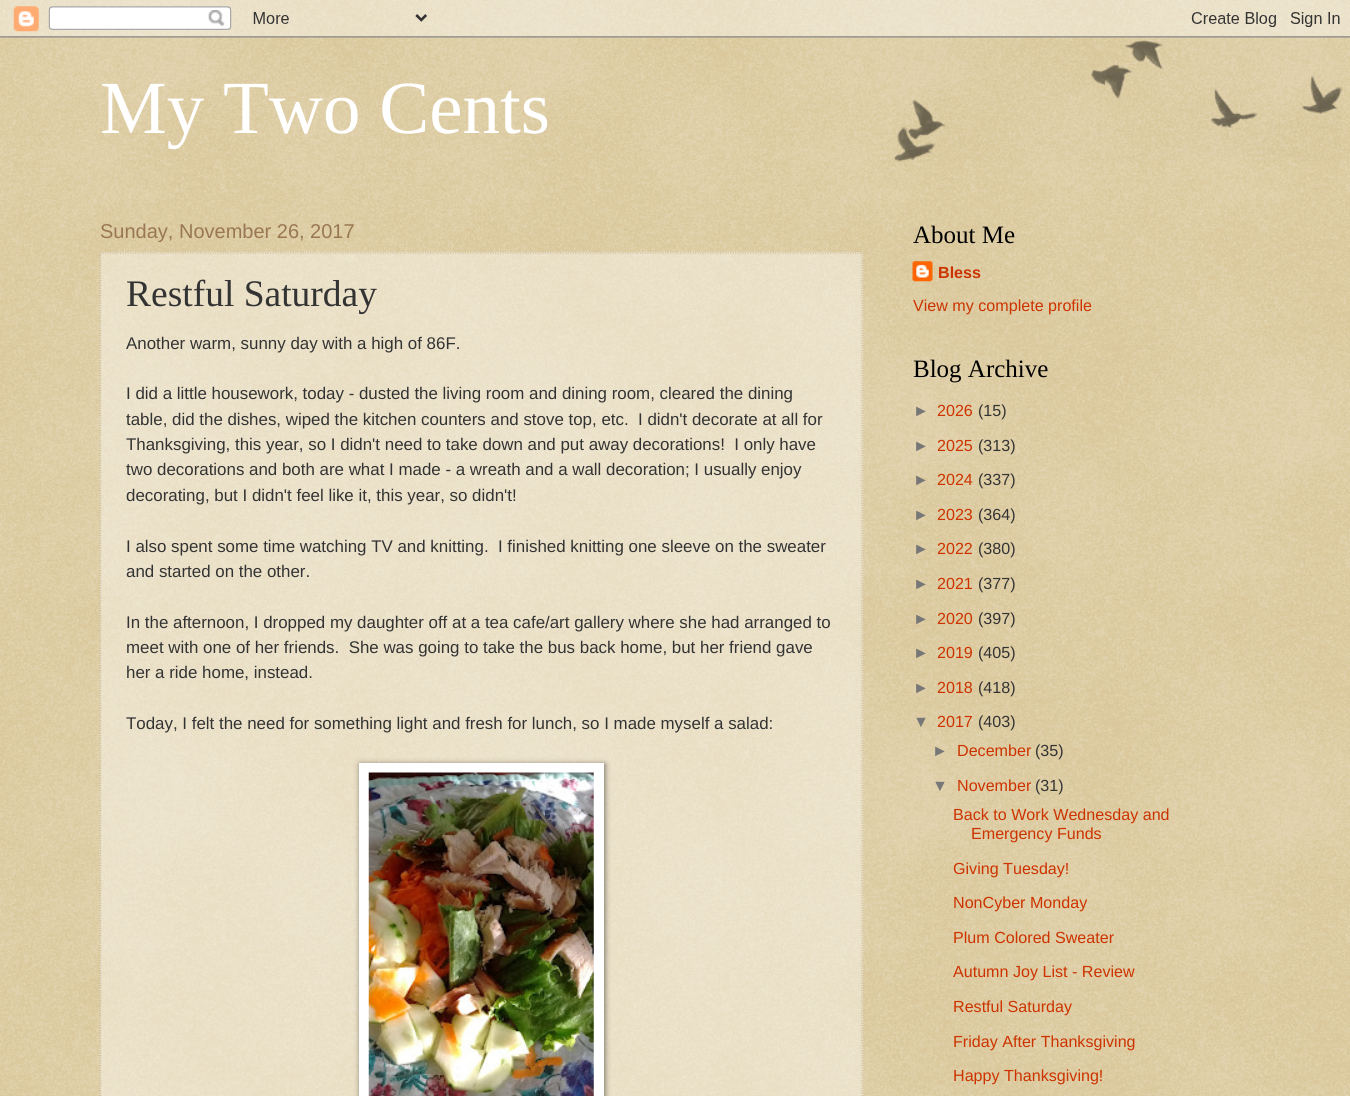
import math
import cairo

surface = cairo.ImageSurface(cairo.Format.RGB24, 1350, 1096)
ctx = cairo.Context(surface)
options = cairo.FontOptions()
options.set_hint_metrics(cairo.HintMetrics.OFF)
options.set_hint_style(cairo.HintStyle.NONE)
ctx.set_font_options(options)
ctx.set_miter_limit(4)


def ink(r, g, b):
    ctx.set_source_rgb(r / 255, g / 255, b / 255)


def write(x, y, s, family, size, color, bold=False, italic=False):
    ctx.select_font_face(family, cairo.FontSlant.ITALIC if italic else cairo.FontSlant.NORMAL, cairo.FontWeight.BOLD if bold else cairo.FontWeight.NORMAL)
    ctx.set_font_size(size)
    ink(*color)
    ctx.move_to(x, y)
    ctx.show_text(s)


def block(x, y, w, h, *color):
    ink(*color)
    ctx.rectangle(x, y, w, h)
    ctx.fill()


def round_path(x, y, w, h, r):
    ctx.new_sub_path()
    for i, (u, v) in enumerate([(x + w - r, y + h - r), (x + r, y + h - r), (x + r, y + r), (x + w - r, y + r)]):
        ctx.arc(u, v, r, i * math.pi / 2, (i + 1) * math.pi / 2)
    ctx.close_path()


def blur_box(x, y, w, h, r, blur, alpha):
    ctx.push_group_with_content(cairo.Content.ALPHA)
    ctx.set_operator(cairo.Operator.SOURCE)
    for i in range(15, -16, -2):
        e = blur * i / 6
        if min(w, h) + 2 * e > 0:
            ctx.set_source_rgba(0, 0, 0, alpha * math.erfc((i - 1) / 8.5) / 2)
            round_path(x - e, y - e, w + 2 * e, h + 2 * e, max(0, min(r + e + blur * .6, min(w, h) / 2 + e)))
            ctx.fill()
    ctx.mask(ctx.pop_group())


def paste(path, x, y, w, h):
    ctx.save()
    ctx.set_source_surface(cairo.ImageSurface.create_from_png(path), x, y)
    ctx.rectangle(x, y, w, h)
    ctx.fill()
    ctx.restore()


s1 = dict(family="Liberation Serif", size=75, color=(255, 255, 255))
s2 = dict(family="Liberation Sans", size=20, color=(153, 119, 85))
s3 = dict(family="Liberation Serif", size=37.5, color=(51, 51, 51))
s4 = dict(family="Liberation Sans", size=16.9, color=(51, 51, 51))
s5 = dict(family="Liberation Serif", size=25, color=(0, 0, 0))
s6 = dict(family="Liberation Sans", size=16.1, color=(204, 51, 0), bold=True)
s7 = dict(family="Liberation Sans", size=16.1, color=(204, 51, 0))
s8 = dict(family="Liberation Sans", size=16.1, color=(119, 119, 119))
s9 = dict(family="Liberation Sans", size=16.1, color=(51, 51, 51))

ink(192, 161, 84)
ctx.paint()
paste("pic1.png", 0, 0, 1350, 1096)
paste("pic2.png", 0, 0, 1350, 38)
paste("pic3.png", 894, 40, 449, 122)
write(100, 133, "My Two Cents", **s1)
write(100, 238, "Sunday, November 26, 2017", **s2)
ctx.set_source_rgba(1, 1, 1, 0.4)
ctx.rectangle(100, 252, 763, 844)
ctx.fill()
ctx.new_path()
ctx.move_to(100, 253)
ctx.line_to(862.5, 253)
ink(204, 187, 153)
ctx.set_line_width(1.2)
ctx.set_dash([1.25, 1.25])
ctx.stroke()
ctx.new_path()
ctx.move_to(862, 252.5)
ctx.line_to(862, 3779)
ctx.stroke()
ctx.new_path()
ctx.move_to(100.5, 252.5)
ctx.line_to(100.5, 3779)
ctx.stroke()
write(126, 306, "Restful Saturday", **s3)
write(126, 349, "Another warm, sunny day with a high of 86F.", **s4)
write(126, 399, "I did a little housework, today - dusted the living room and dining room, cleared the dining", **s4)
write(126, 425, "table, did the dishes, wiped the kitchen counters and stove top, etc.  I didn't decorate at all for", **s4)
write(126, 450, "Thanksgiving, this year, so I didn't need to take down and put away decorations!  I only have", **s4)
write(126, 475, "two decorations and both are what I made - a wreath and a wall decoration; I usually enjoy", **s4)
write(126, 501, "decorating, but I didn't feel like it, this year, so didn't!", **s4)
write(126, 552, "I also spent some time watching TV and knitting.  I finished knitting one sleeve on the sweater", **s4)
write(126, 577, "and started on the other.", **s4)
write(126, 628, "In the afternoon, I dropped my daughter off at a tea cafe/art gallery where she had arranged to", **s4)
write(126, 653, "meet with one of her friends.  She was going to take the bus back home, but her friend gave", **s4)
write(126, 678, "her a ride home, instead.", **s4)
write(126, 729, "Today, I felt the need for something light and fresh for lunch, so I made myself a salad:", **s4)
ink(0, 0, 0)
blur_box(360, 764, 245, 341, 0, 3, 0.5)
block(359, 763, 245, 333, 255, 255, 255)
paste("pic4.png", 368, 772, 226, 324)
write(913, 243, "About Me", **s5)
paste("pic5.png", 912, 261, 21, 21)
write(938, 278, "Bless", **s6)
write(913, 311, "View my complete profile", **s7)
write(913, 377, "Blog Archive", **s5)
write(913, 416, "►", **s8)
write(937, 416, "2026", **s7)
write(978, 416, "(15)", **s9)
write(913, 451, "►", **s8)
write(937, 451, "2025", **s7)
write(978, 451, "(313)", **s9)
write(913, 485, "►", **s8)
write(937, 485, "2024", **s7)
write(978, 485, "(337)", **s9)
write(913, 520, "►", **s8)
write(937, 520, "2023", **s7)
write(978, 520, "(364)", **s9)
write(913, 554, "►", **s8)
write(937, 554, "2022", **s7)
write(978, 554, "(380)", **s9)
write(913, 589, "►", **s8)
write(937, 589, "2021", **s7)
write(978, 589, "(377)", **s9)
write(913, 624, "►", **s8)
write(937, 624, "2020", **s7)
write(978, 624, "(397)", **s9)
write(913, 658, "►", **s8)
write(937, 658, "2019", **s7)
write(978, 658, "(405)", **s9)
write(913, 693, "►", **s8)
write(937, 693, "2018", **s7)
write(978, 693, "(418)", **s9)
write(913, 727, "▼", **s8)
write(937, 727, "2017", **s7)
write(978, 727, "(403)", **s9)
write(932, 756, "►", **s8)
write(957, 756, "December", **s7)
write(1035, 756, "(35)", **s9)
write(932, 791, "▼", **s8)
write(957, 791, "November", **s7)
write(1035, 791, "(31)", **s9)
write(953, 820, "Back to Work Wednesday and", **s7)
write(971, 839, "Emergency Funds", **s7)
write(953, 874, "Giving Tuesday!", **s7)
write(953, 908, "NonCyber Monday", **s7)
write(953, 943, "Plum Colored Sweater", **s7)
write(953, 977, "Autumn Joy List - Review", **s7)
write(953, 1012, "Restful Saturday", **s7)
write(953, 1047, "Friday After Thanksgiving", **s7)
write(953, 1081, "Happy Thanksgiving!", **s7)
surface.write_to_png("screenshot.png")
